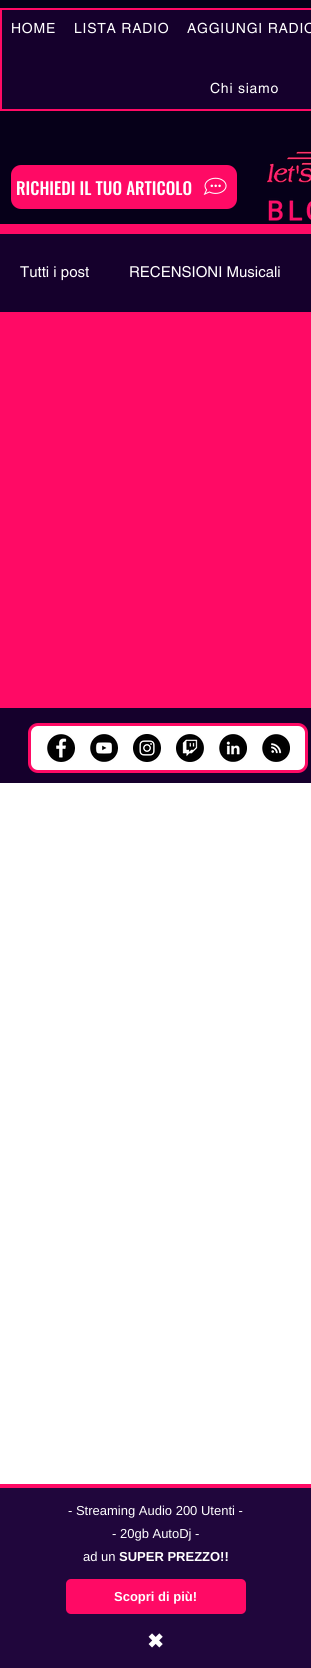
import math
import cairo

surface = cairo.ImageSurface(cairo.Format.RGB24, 311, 1668)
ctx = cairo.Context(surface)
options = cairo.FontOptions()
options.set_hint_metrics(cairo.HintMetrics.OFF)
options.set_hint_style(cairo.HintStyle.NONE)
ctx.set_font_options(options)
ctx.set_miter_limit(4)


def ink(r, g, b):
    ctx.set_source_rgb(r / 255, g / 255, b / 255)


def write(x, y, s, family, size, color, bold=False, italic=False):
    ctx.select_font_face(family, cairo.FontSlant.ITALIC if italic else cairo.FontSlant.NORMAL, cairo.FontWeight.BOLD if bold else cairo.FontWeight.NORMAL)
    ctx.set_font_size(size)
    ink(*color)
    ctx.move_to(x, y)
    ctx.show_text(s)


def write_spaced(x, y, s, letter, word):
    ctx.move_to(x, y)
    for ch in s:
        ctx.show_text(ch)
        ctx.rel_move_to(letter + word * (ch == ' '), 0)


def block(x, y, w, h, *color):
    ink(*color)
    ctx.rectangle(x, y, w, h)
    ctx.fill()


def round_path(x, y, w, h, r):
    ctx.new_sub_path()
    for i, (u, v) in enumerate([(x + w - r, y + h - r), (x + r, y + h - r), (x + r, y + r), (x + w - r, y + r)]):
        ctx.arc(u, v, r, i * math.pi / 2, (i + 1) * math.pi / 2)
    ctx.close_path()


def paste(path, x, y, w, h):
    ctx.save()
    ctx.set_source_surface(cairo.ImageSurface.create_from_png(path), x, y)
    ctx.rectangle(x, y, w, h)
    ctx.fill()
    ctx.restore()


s1 = dict(family="Oswald Medium", size=17, color=(255, 255, 255))
s2 = dict(family="helvetica", size=15, color=(255, 255, 255))
s3 = dict(family="Liberation Sans", size=13, color=(255, 255, 255))
s4 = dict(family="Liberation Sans", size=13, color=(255, 255, 255), bold=True)
s5 = dict(family="DejaVu Sans", size=20, color=(255, 255, 255), bold=True)

ink(255, 255, 255)
ctx.paint()
block(0, 0, 311, 224, 6, 0, 25)
ink(21, 0, 44)
ctx.rectangle(1, 9, 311, 101)
ctx.fill_preserve()
ink(255, 10, 101)
ctx.stroke()
ctx.select_font_face("helvetica")
ctx.set_font_size(14)
ink(255, 255, 255)
write_spaced(11, 33, "HOME", 0.75, 0)
write_spaced(74, 33, "LISTA RADIO", 0.75, 0)
write_spaced(187, 33, "AGGIUNGI RADIO", 0.75, 0)
write_spaced(210, 93, "Chi siamo", 0.75, 0)
ink(255, 10, 101)
round_path(11, 165, 226, 44, 10)
ctx.fill()
write(16, 195, "RICHIEDI IL TUO ARTICOLO", **s1)
paste("pic1.png", 203, 177, 24, 18)
paste("pic2.png", 266, 151, 45, 70)
block(0, 224, 311, 10, 255, 10, 101)
block(0, 312, 311, 396, 255, 10, 101)
block(0, 234, 311, 78, 21, 0, 44)
write(20, 277, "Tutti i post", **s2)
write(129, 277, "RECENSIONI Musicali", **s2)
block(0, 708, 311, 75, 21, 0, 44)
ink(255, 255, 255)
round_path(29.5, 724.5, 277, 47, 8.5)
ctx.fill_preserve()
ink(255, 10, 101)
ctx.set_line_width(3)
ctx.stroke()
paste("pic3.png", 47, 734, 28, 28)
paste("pic4.png", 90, 734, 28, 28)
paste("pic5.png", 133, 734, 28, 28)
paste("pic6.png", 176, 734, 28, 28)
paste("pic7.png", 219, 734, 28, 28)
paste("pic8.png", 262, 734, 28, 28)
block(0, 1488, 311, 180, 32, 6, 60)
block(0, 1484, 311, 4, 255, 10, 101)
write(68, 1515, "- Streaming Audio 200 Utenti -", **s3)
write(112, 1538, "- 20gb AutoDj -", **s3)
write(83, 1561, "ad un", **s3)
write(119, 1561, "SUPER PREZZO!!", **s4)
ink(255, 10, 101)
round_path(66, 1579, 180, 35, 5)
ctx.fill()
write(114, 1601, "Scopri di più!", **s4)
write(147, 1648, "✖", **s5)
surface.write_to_png("screenshot.png")
